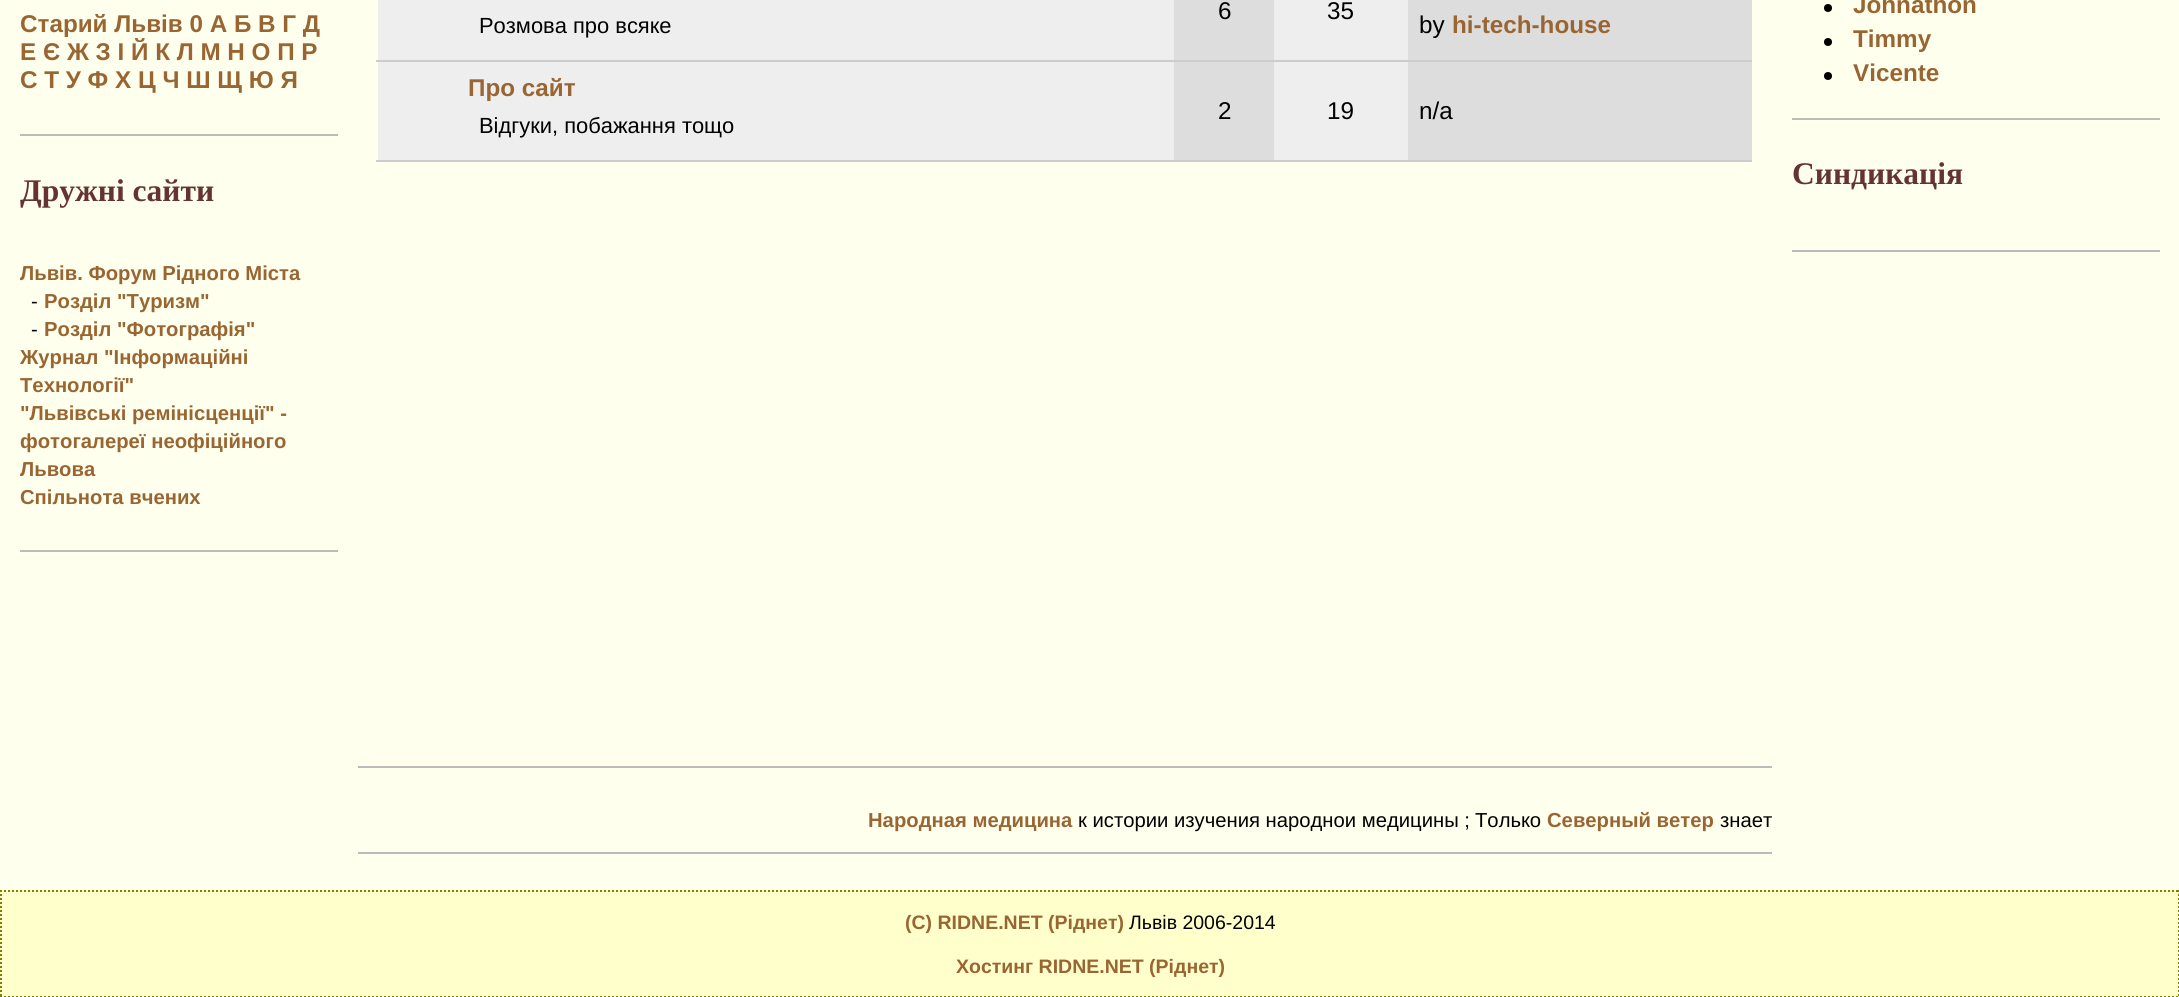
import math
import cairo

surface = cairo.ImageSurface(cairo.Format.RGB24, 2179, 997)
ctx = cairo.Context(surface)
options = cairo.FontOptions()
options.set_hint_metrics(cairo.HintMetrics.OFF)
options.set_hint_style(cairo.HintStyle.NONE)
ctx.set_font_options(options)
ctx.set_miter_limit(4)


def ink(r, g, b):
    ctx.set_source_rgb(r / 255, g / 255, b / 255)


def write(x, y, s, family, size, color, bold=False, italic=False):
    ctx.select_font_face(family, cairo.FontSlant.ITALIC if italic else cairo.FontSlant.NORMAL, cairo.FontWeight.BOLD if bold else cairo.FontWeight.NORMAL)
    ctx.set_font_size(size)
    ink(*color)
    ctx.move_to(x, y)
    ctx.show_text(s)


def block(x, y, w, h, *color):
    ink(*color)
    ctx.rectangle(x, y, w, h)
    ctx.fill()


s1 = dict(family="Liberation Sans", size=24.25, color=(153, 102, 51), bold=True)
s2 = dict(family="Liberation Serif", size=31.5, color=(102, 51, 51), bold=True)
s3 = dict(family="Liberation Sans", size=20.25, color=(153, 102, 51), bold=True)
s4 = dict(family="Liberation Sans", size=20.25, color=(0, 0, 0))
s5 = dict(family="Liberation Sans", size=24.25, color=(0, 0, 0))
s6 = dict(family="Liberation Sans", size=21.9, color=(0, 0, 0))
s7 = dict(family="Liberation Sans", size=19.5, color=(153, 102, 51), bold=True)
s8 = dict(family="Liberation Sans", size=19.5, color=(0, 0, 0))

ink(255, 255, 238)
ctx.paint()
block(20, 134, 318, 2, 187, 187, 187)
write(20, 32, "Старий Львів 0 А Б В Г Д", **s1)
write(20, 60, "Е Є Ж З І Й К Л М Н О П Р", **s1)
write(20, 88, "С Т У Ф Х Ц Ч Ш Щ Ю Я", **s1)
block(20, 550, 318, 2, 187, 187, 187)
write(20, 201, "Дружні сайти", **s2)
write(20, 280, "Львів. Форум Рідного Міста", **s3)
write(31, 308, "-", **s4)
write(44, 308, "Розділ \"Туризм\"", **s3)
write(31, 336, "-", **s4)
write(44, 336, "Розділ \"Фотографія\"", **s3)
write(20, 364, "Журнал \"Інформаційні", **s3)
write(20, 392, "Технології\"", **s3)
write(20, 420, "\"Львівські ремінісценції\" -", **s3)
write(20, 448, "фотогалереї неофіційного", **s3)
write(20, 476, "Львова", **s3)
write(20, 504, "Спільнота вчених", **s3)
block(378, 0, 1030, 60, 238, 238, 238)
block(376, 60, 1376, 2, 204, 204, 204)
block(1174, 0, 100, 60, 221, 221, 221)
write(1218, 19, "6", **s5)
write(1327, 19, "35", **s5)
write(479, 33, "Розмова про всяке", **s6)
block(1408, 0, 344, 60, 221, 221, 221)
write(1419, 33, "by", **s5)
write(1452, 33, "hi-tech-house", **s1)
block(378, 62, 1030, 98, 238, 238, 238)
block(376, 160, 1376, 2, 204, 204, 204)
write(468, 96, "Про сайт", **s1)
write(479, 133, "Відгуки, побажання тощо", **s6)
block(1174, 62, 100, 98, 221, 221, 221)
write(1218, 119, "2", **s5)
write(1327, 119, "19", **s5)
block(1408, 62, 344, 98, 221, 221, 221)
write(1419, 119, "n/a", **s5)
block(358, 766, 1414, 2, 187, 187, 187)
block(358, 852, 1414, 2, 187, 187, 187)
write(868, 827, "Народная медицина", **s3)
write(1078, 827, "к истории изучения народнои медицины ;", **s4)
write(1475, 827, "Только", **s4)
write(1547, 827, "Северный ветер", **s3)
write(1720, 827, "знает", **s4)
block(1792, 118, 368, 2, 187, 187, 187)
ink(0, 0, 0)
ctx.new_path()
ctx.arc(1828, 8, 4, 0, 2 * math.pi)
ctx.fill()
write(1853, 13, "Johnathon", **s1)
ink(0, 0, 0)
ctx.new_path()
ctx.arc(1828, 42, 4, 0, 2 * math.pi)
ctx.fill()
write(1853, 47, "Timmy", **s1)
ink(0, 0, 0)
ctx.new_path()
ctx.arc(1828, 76, 4, 0, 2 * math.pi)
ctx.fill()
write(1853, 81, "Vicente", **s1)
block(1792, 250, 368, 2, 187, 187, 187)
write(1792, 184, "Синдикація", **s2)
block(0, 890, 2179, 107, 255, 255, 204)
ctx.new_path()
ctx.move_to(0, 891)
ctx.line_to(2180, 891)
ink(128, 128, 0)
ctx.set_dash([2, 2])
ctx.stroke()
ctx.new_path()
ctx.move_to(2179, 890)
ctx.line_to(2179, 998)
ctx.stroke()
ctx.new_path()
ctx.move_to(0, 997)
ctx.line_to(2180, 997)
ctx.stroke()
ctx.new_path()
ctx.move_to(1, 890)
ctx.line_to(1, 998)
ctx.stroke()
write(905, 929, "(C) RIDNE.NET (Ріднет)", **s7)
write(1129, 929, "Львів 2006-2014", **s8)
write(956, 973, "Хостинг RIDNE.NET (Ріднет)", **s7)
surface.write_to_png("screenshot.png")
